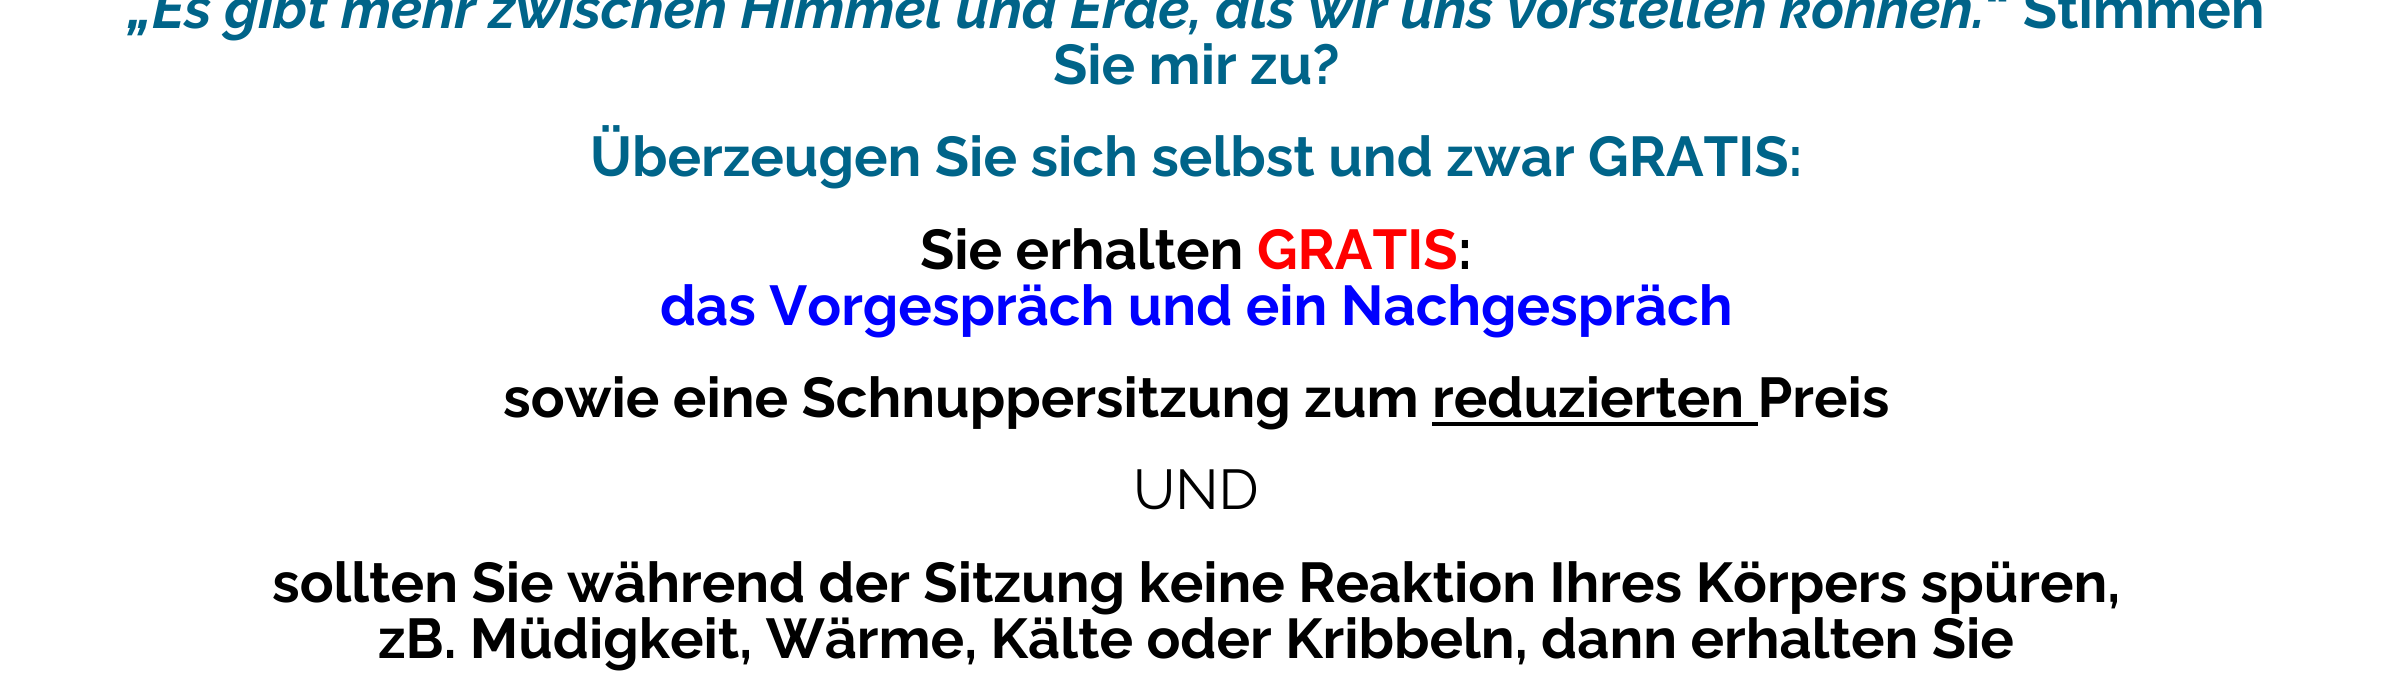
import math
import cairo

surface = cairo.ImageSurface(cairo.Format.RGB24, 2392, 676)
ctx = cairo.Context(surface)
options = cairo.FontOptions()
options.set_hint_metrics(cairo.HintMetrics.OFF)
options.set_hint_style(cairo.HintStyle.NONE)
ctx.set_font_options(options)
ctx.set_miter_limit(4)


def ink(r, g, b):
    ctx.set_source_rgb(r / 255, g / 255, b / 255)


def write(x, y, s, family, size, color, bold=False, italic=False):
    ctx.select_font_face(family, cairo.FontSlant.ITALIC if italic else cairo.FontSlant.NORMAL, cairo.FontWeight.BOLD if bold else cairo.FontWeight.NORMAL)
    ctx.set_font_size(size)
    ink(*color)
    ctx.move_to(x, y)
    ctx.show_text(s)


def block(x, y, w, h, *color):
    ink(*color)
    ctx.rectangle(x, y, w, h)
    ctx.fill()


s1 = dict(family="Raleway", size=56, color=(0, 100, 137), bold=True, italic=True)
s2 = dict(family="Raleway", size=56, color=(0, 100, 137), bold=True)
s3 = dict(family="Raleway", size=56, color=(0, 0, 0), bold=True)
s4 = dict(family="Raleway", size=56, color=(255, 0, 0), bold=True)
s5 = dict(family="Raleway", size=56, color=(0, 0, 255), bold=True)
s6 = dict(family="Raleway", size=56, color=(0, 0, 0))

ink(255, 255, 255)
ctx.paint()
write(128, 28, "„Es gibt mehr zwischen Himmel und Erde, als wir uns vorstellen können.", **s1)
write(1985, 28, "“ Stimmen", **s2)
write(1053, 84, "Sie mir zu?", **s2)
write(590, 176, "Überzeugen Sie sich selbst und zwar GRATIS:", **s2)
write(920, 269, "Sie erhalten", **s3)
write(1257, 269, "GRATIS", **s4)
write(1458, 269, ":", **s3)
write(660, 325, "das Vorgespräch und ein Nachgespräch", **s5)
write(503, 417, "sowie eine Schnuppersitzung zum reduzierten Preis", **s3)
block(1432, 422, 326, 4, 0, 0, 0)
write(1133, 509, "UND", **s6)
write(272, 602, "sollten Sie während der Sitzung keine Reaktion Ihres Körpers spüren,", **s3)
write(378, 658, "zB. Müdigkeit, Wärme, Kälte oder Kribbeln, dann erhalten Sie", **s3)
surface.write_to_png("screenshot.png")
